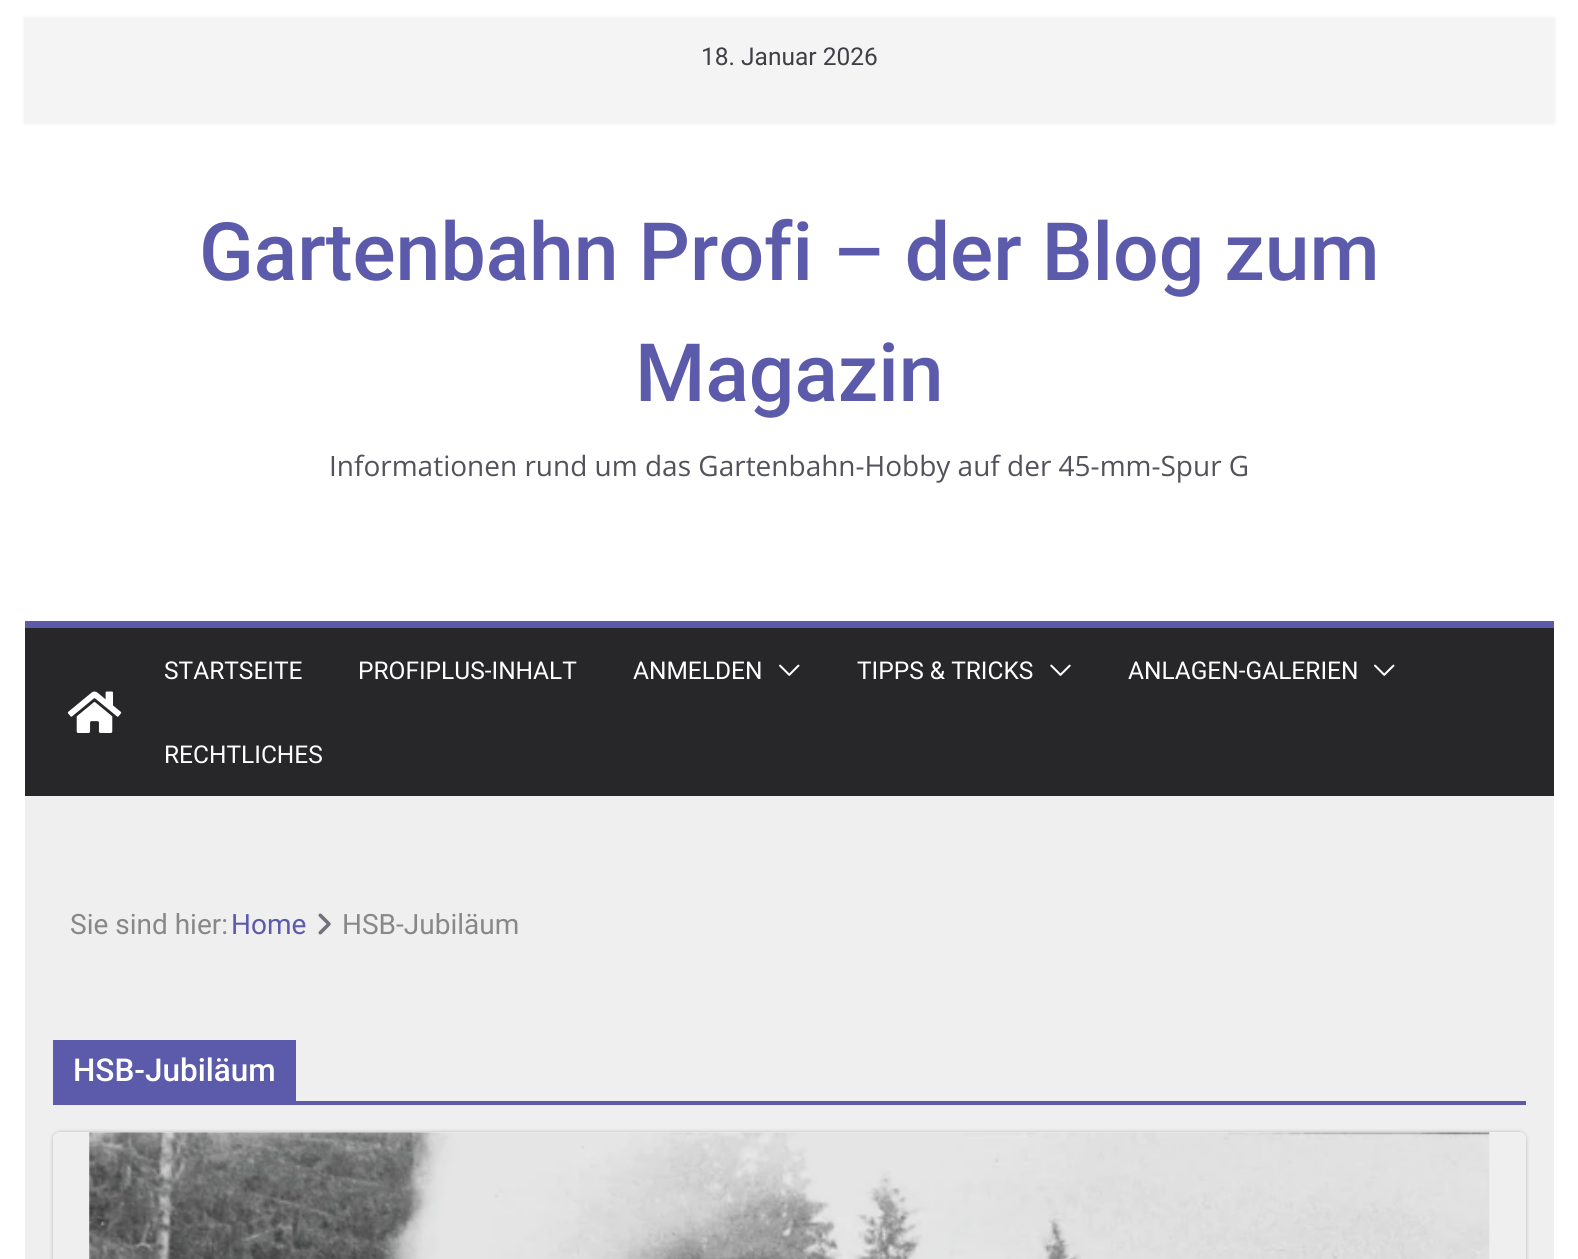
import math
import cairo

surface = cairo.ImageSurface(cairo.Format.RGB24, 1578, 1259)
ctx = cairo.Context(surface)
options = cairo.FontOptions()
options.set_hint_metrics(cairo.HintMetrics.OFF)
options.set_hint_style(cairo.HintStyle.NONE)
ctx.set_font_options(options)
ctx.set_miter_limit(4)


def ink(r, g, b):
    ctx.set_source_rgb(r / 255, g / 255, b / 255)


def write(x, y, s, family, size, color, bold=False, italic=False):
    ctx.select_font_face(family, cairo.FontSlant.ITALIC if italic else cairo.FontSlant.NORMAL, cairo.FontWeight.BOLD if bold else cairo.FontWeight.NORMAL)
    ctx.set_font_size(size)
    ink(*color)
    ctx.move_to(x, y)
    ctx.show_text(s)


def block(x, y, w, h, *color):
    ink(*color)
    ctx.rectangle(x, y, w, h)
    ctx.fill()


def round_path(x, y, w, h, r):
    ctx.new_sub_path()
    for i, (u, v) in enumerate([(x + w - r, y + h - r), (x + r, y + h - r), (x + r, y + r), (x + w - r, y + r)]):
        ctx.arc(u, v, r, i * math.pi / 2, (i + 1) * math.pi / 2)
    ctx.close_path()


def blur_box(x, y, w, h, r, blur, alpha):
    ctx.push_group_with_content(cairo.Content.ALPHA)
    ctx.set_operator(cairo.Operator.SOURCE)
    for i in range(15, -16, -2):
        e = blur * i / 6
        if min(w, h) + 2 * e > 0:
            ctx.set_source_rgba(0, 0, 0, alpha * math.erfc((i - 1) / 8.5) / 2)
            round_path(x - e, y - e, w + 2 * e, h + 2 * e, max(0, min(r + e + blur * .6, min(w, h) / 2 + e)))
            ctx.fill()
    ctx.mask(ctx.pop_group())


def paste(path, x, y, w, h):
    ctx.save()
    ctx.set_source_surface(cairo.ImageSurface.create_from_png(path), x, y)
    ctx.rectangle(x, y, w, h)
    ctx.fill()
    ctx.restore()


s1 = dict(family="Roboto", size=24.5, color=(63, 63, 70))
s2 = dict(family="Roboto Medium", size=80.5, color=(92, 91, 171))
s3 = dict(family="Open Sans", size=28, color=(82, 82, 91))
s4 = dict(family="Roboto", size=24.5, color=(255, 255, 255))
s5 = dict(family="Roboto", size=28, color=(136, 136, 136))
s6 = dict(family="Roboto", size=28, color=(92, 91, 171))
s7 = dict(family="Roboto Medium", size=31.5, color=(255, 255, 255))

ink(255, 255, 255)
ctx.paint()
ink(0, 0, 0)
blur_box(25, 18, 1529, 105, 0, 2, 0.1)
block(25, 18, 1529, 105, 244, 244, 245)
write(701, 65, "18. Januar 2026", **s1)
write(199, 280, "Gartenbahn Profi – der Blog zum", **s2)
write(635, 401, "Magazin", **s2)
write(329, 476, "Informationen rund um das Gartenbahn-Hobby auf der 45-mm-Spur G", **s3)
block(25, 628, 1529, 168, 39, 39, 42)
block(25, 621, 1529, 7, 92, 91, 171)
paste("pic1.png", 67, 691, 55, 42)
write(164, 679, "STARTSEITE", **s4)
write(358, 679, "PROFIPLUS-INHALT", **s4)
write(633, 679, "ANMELDEN", **s4)
paste("pic2.png", 779, 664, 21, 12)
write(857, 679, "TIPPS & TRICKS", **s4)
paste("pic3.png", 1050, 664, 21, 12)
write(1128, 679, "ANLAGEN-GALERIEN", **s4)
paste("pic2.png", 1374, 664, 21, 12)
write(164, 763, "RECHTLICHES", **s4)
block(25, 796, 1529, 463, 239, 239, 239)
write(70, 934, "Sie sind hier:", **s5)
write(231, 934, "Home", **s6)
paste("pic4.png", 318, 913, 13, 22)
write(342, 934, "HSB-Jubiläum", **s5)
block(53, 1101, 1473, 4, 92, 91, 171)
block(53, 1040, 243, 61, 92, 91, 171)
write(73, 1081, "HSB-Jubiläum", **s7)
ctx.save()
ctx.set_fill_rule(cairo.FillRule.EVEN_ODD)
ctx.new_path()
ctx.move_to(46, 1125)
ctx.line_to(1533, 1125)
ctx.line_to(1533, 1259)
ctx.line_to(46, 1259)
ctx.close_path()
ctx.move_to(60, 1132)
ctx.line_to(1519, 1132)
ctx.curve_to(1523, 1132, 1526, 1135, 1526, 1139)
ctx.line_to(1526, 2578)
ctx.curve_to(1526, 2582, 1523, 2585, 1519, 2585)
ctx.line_to(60, 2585)
ctx.curve_to(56, 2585, 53, 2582, 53, 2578)
ctx.line_to(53, 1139)
ctx.curve_to(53, 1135, 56, 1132, 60, 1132)
ctx.close_path()
ctx.clip()
ink(0, 0, 0)
blur_box(53, 1132, 1473, 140, 7, 2, 0.24)
ctx.restore()
paste("pic5.png", 89, 1132, 1401, 127)
surface.write_to_png("screenshot.png")
